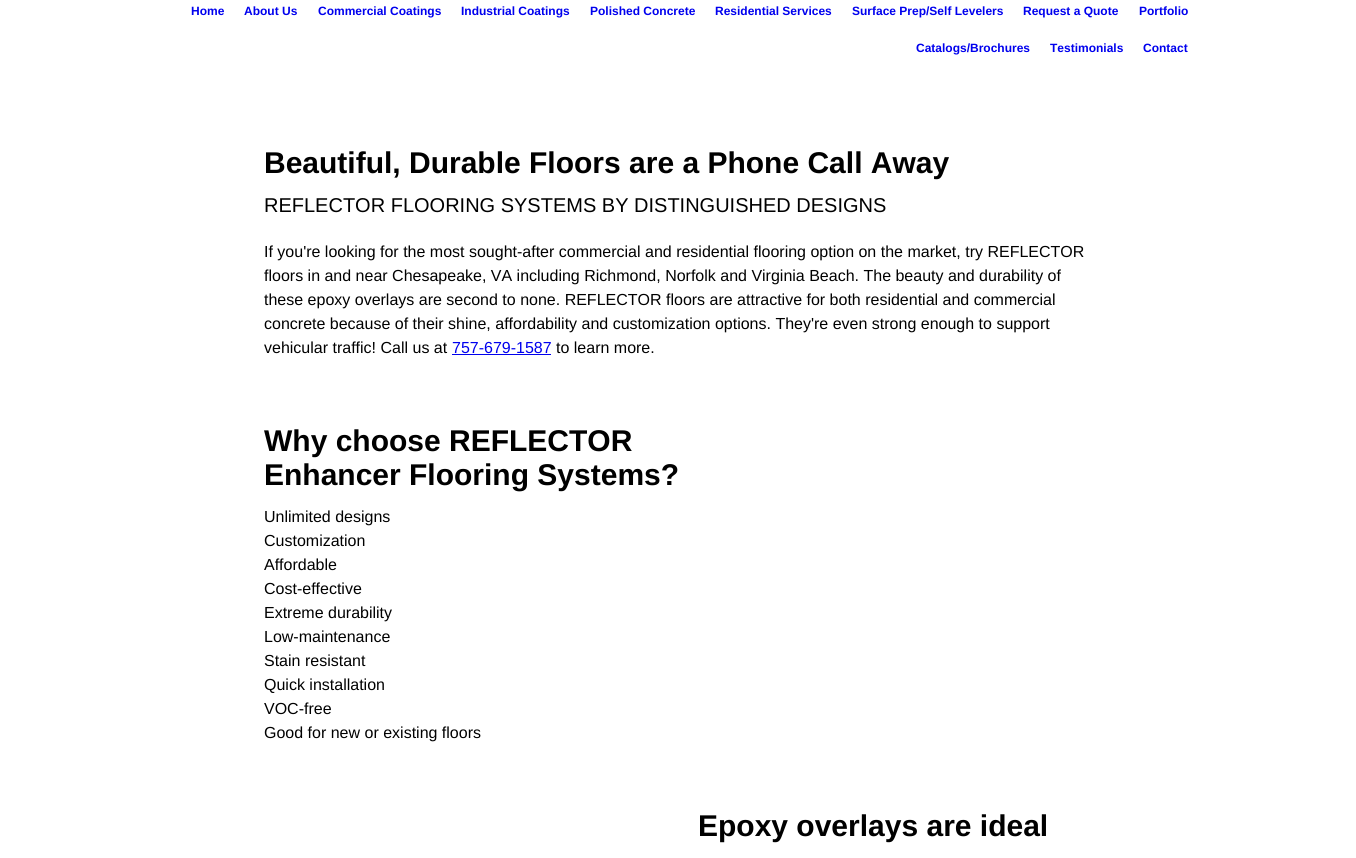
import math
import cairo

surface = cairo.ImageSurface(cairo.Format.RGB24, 1356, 858)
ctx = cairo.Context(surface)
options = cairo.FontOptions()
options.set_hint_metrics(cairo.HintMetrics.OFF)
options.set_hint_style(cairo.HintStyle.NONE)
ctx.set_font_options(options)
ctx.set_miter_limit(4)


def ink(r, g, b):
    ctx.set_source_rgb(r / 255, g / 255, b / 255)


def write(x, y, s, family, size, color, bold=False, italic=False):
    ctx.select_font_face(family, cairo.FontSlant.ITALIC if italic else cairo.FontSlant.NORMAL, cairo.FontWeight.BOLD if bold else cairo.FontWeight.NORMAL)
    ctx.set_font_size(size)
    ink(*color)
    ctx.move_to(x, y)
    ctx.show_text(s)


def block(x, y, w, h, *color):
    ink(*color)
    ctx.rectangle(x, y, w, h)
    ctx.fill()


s1 = dict(family="Liberation Sans", size=12, color=(0, 0, 238), bold=True)
s2 = dict(family="Liberation Sans", size=30, color=(0, 0, 0), bold=True)
s3 = dict(family="Liberation Sans", size=20, color=(0, 0, 0))
s4 = dict(family="Liberation Sans", size=16, color=(0, 0, 0))
s5 = dict(family="Liberation Sans", size=16, color=(0, 0, 238))

ink(255, 255, 255)
ctx.paint()
write(191, 15, "Home", **s1)
write(244, 15, "About Us", **s1)
write(318, 15, "Commercial Coatings", **s1)
write(461, 15, "Industrial Coatings", **s1)
write(590, 15, "Polished Concrete", **s1)
write(715, 15, "Residential Services", **s1)
write(852, 15, "Surface Prep/Self Levelers", **s1)
write(1023, 15, "Request a Quote", **s1)
write(1139, 15, "Portfolio", **s1)
write(916, 52, "Catalogs/Brochures", **s1)
write(1050, 52, "Testimonials", **s1)
write(1143, 52, "Contact", **s1)
write(264, 173, "Beautiful, Durable Floors are a Phone Call Away", **s2)
write(264, 212, "REFLECTOR FLOORING SYSTEMS BY DISTINGUISHED DESIGNS", **s3)
write(264, 257, "If you're looking for the most sought-after commercial and residential flooring option on the market, try REFLECTOR", **s4)
write(264, 281, "floors in and near Chesapeake, VA including Richmond, Norfolk and Virginia Beach. The beauty and durability of", **s4)
write(264, 305, "these epoxy overlays are second to none. REFLECTOR floors are attractive for both residential and commercial", **s4)
write(264, 329, "concrete because of their shine, affordability and customization options. They're even strong enough to support", **s4)
write(264, 353, "vehicular traffic! Call us at", **s4)
write(452, 353, "757-679-1587", **s5)
block(452, 354, 99, 1, 0, 0, 238)
write(556, 353, "to learn more.", **s4)
write(264, 451, "Why choose REFLECTOR", **s2)
write(264, 485, "Enhancer Flooring Systems?", **s2)
write(264, 522, "Unlimited designs", **s4)
write(264, 546, "Customization", **s4)
write(264, 570, "Affordable", **s4)
write(264, 594, "Cost-effective", **s4)
write(264, 618, "Extreme durability", **s4)
write(264, 642, "Low-maintenance", **s4)
write(264, 666, "Stain resistant", **s4)
write(264, 690, "Quick installation", **s4)
write(264, 714, "VOC-free", **s4)
write(264, 738, "Good for new or existing floors", **s4)
write(698, 836, "Epoxy overlays are ideal", **s2)
surface.write_to_png("screenshot.png")
